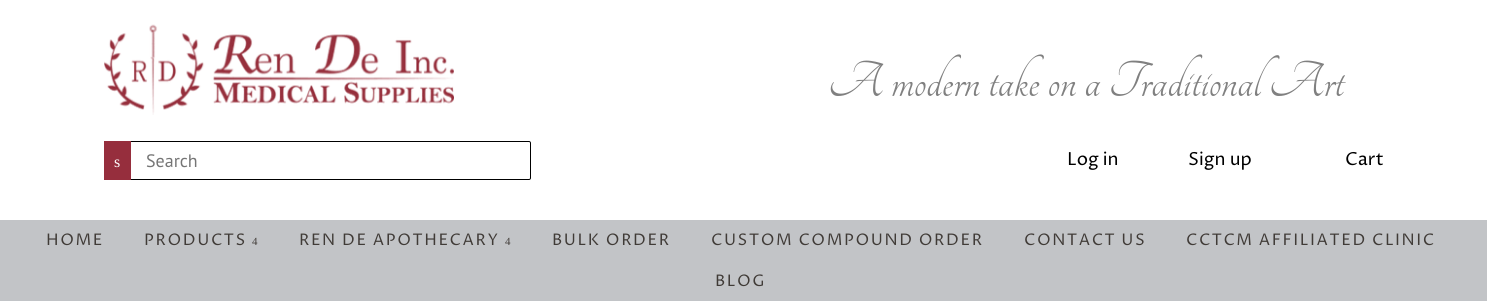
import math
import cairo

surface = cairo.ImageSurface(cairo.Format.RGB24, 1487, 301)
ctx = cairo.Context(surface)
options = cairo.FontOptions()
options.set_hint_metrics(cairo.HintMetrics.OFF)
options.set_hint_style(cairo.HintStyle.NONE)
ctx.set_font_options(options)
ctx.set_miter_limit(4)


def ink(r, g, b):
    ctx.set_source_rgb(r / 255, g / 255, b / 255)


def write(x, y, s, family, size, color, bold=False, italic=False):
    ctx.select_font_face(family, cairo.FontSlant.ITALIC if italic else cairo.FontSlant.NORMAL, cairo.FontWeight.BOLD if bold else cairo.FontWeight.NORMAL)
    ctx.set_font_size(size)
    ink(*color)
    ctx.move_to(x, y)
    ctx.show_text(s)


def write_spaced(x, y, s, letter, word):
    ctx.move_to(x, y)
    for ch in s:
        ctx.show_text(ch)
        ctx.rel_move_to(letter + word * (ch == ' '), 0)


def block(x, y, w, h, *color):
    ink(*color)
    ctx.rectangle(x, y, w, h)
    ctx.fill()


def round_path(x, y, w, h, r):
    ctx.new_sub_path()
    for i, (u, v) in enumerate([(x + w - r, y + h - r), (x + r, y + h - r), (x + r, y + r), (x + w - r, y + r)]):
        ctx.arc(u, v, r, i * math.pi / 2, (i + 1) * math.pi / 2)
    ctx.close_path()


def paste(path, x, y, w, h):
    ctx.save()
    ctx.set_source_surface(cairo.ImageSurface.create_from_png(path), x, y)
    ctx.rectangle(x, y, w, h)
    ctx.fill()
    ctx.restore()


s1 = dict(family="Tangerine", size=55, color=(128, 128, 128))
s2 = dict(family="PT Sans", size=18, color=(117, 117, 117))
s3 = dict(family="Proza Libre", size=18, color=(0, 0, 0))

ink(255, 255, 255)
ctx.paint()
paste("pic1.png", 104, 24, 350, 91)
write(828, 96, "A modern take on a Traditional Art", **s1)
round_path(104.5, 141.5, 426, 38, 1.5)
ink(0, 0, 0)
ctx.set_line_width(1)
ctx.stroke()
block(104, 141, 27, 39, 150, 46, 61)
ctx.select_font_face("Liberation Serif")
ctx.set_font_size(16)
ink(255, 255, 255)
write_spaced(114, 167, "s", 1.6, 0)
write(146, 167, "Search", **s2)
write(1067, 165, "Log in", **s3)
write(1188, 165, "Sign up", **s3)
write(1345, 165, "Cart", **s3)
block(0, 220, 1487, 81, 194, 196, 199)
ctx.set_font_size(16)
ink(64, 59, 55)
write_spaced(46, 245, "HOME", 1.6, 0)
write_spaced(144, 245, "PRODUCTS", 1.6, 0)
ctx.select_font_face("Liberation Serif")
ctx.set_font_size(11)
write_spaced(252, 245, "4", 1.6, 0)
ctx.select_font_face("Proza Libre")
ctx.set_font_size(16)
write_spaced(299, 245, "REN DE APOTHECARY", 1.6, 0)
ctx.select_font_face("Liberation Serif")
ctx.set_font_size(11)
write_spaced(505, 245, "4", 1.6, 0)
ctx.select_font_face("Proza Libre")
ctx.set_font_size(16)
write_spaced(552, 245, "BULK ORDER", 1.6, 0)
write_spaced(711, 245, "CUSTOM COMPOUND ORDER", 1.6, 0)
write_spaced(1024, 245, "CONTACT US", 1.6, 0)
write_spaced(1186, 245, "CCTCM AFFILIATED CLINIC", 1.6, 0)
write_spaced(715, 286, "BLOG", 1.6, 0)
surface.write_to_png("screenshot.png")
